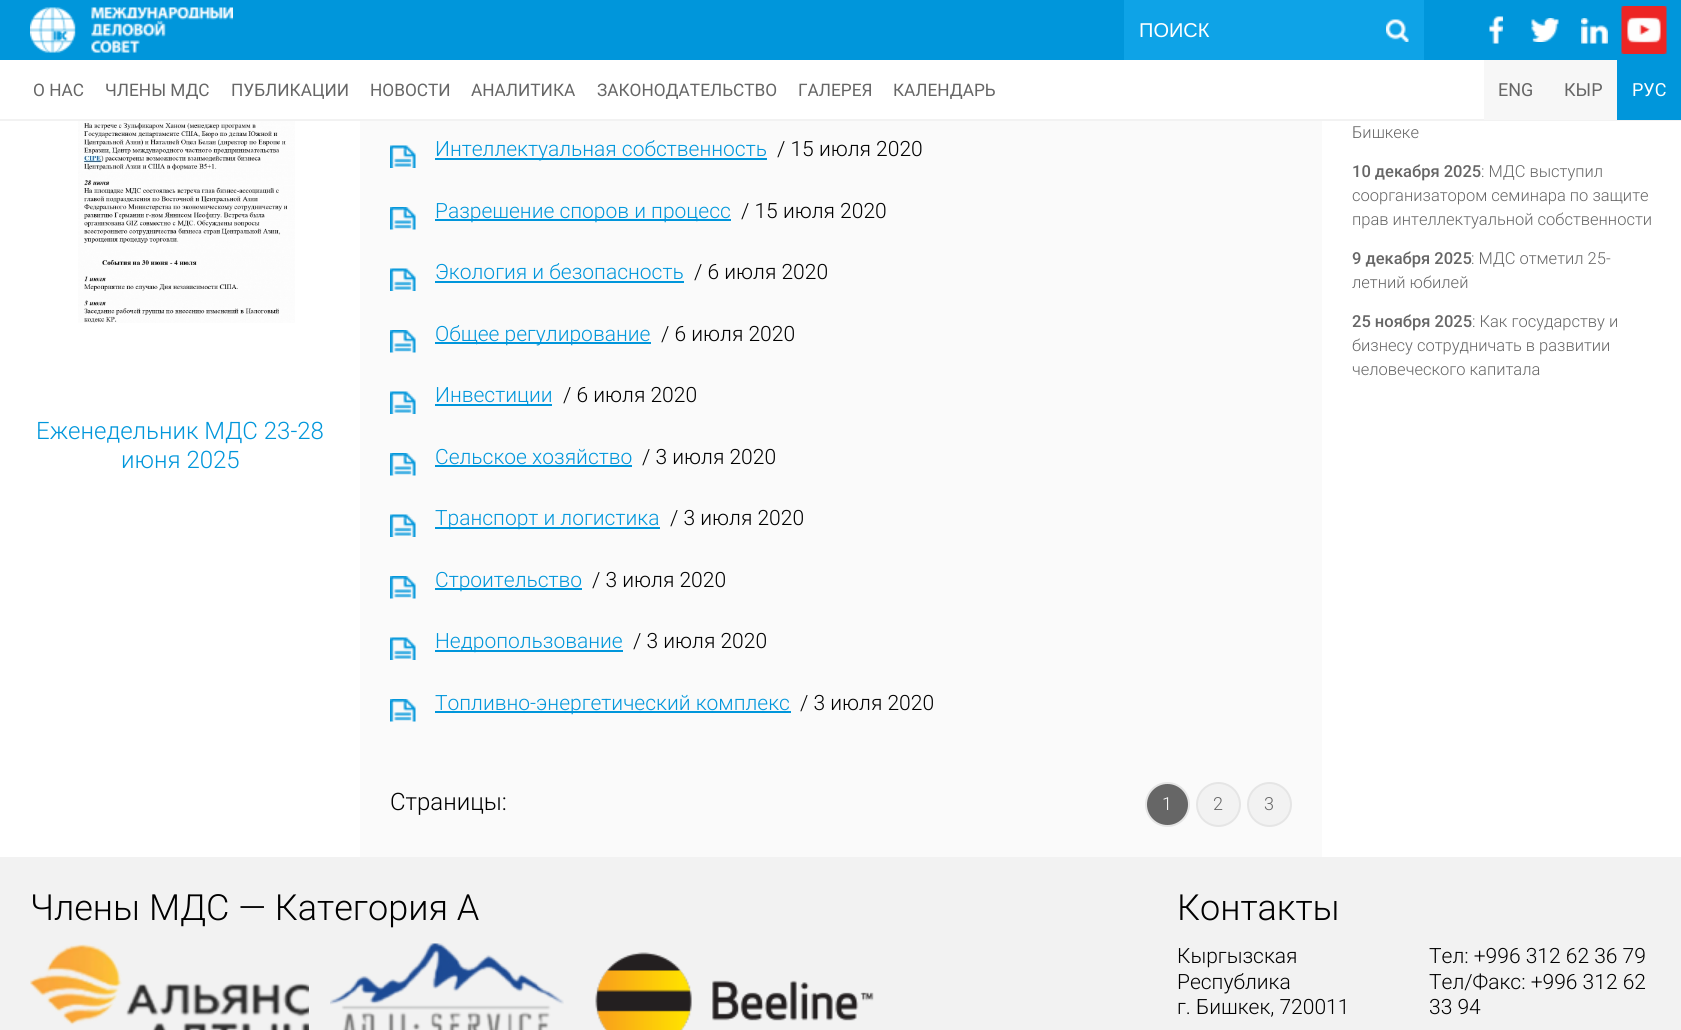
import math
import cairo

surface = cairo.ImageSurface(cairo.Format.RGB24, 1681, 1030)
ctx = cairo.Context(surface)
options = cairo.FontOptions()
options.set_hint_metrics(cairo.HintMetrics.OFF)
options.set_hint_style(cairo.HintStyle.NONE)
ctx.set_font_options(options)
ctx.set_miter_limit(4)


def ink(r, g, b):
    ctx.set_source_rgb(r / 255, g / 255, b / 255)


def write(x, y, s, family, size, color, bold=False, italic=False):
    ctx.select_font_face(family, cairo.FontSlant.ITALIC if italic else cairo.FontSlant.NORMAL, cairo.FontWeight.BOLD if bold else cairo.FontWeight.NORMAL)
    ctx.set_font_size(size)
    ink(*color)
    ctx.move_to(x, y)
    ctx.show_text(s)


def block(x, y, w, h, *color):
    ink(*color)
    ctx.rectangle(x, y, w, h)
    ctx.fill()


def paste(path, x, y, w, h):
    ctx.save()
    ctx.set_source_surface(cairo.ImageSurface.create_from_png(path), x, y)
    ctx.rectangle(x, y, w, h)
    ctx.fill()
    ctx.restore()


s1 = dict(family="Liberation Sans", size=20, color=(255, 255, 255))
s2 = dict(family="Roboto", size=17.25, color=(102, 102, 102))
s3 = dict(family="Roboto", size=18, color=(102, 102, 102))
s4 = dict(family="Roboto", size=18, color=(255, 255, 255))
s5 = dict(family="Roboto Light", size=24, color=(0, 150, 219))
s6 = dict(family="Roboto Light", size=21, color=(0, 150, 219))
s7 = dict(family="Roboto Light", size=21, color=(0, 0, 0))
s8 = dict(family="Roboto Light", size=24, color=(0, 0, 0))
s9 = dict(family="Roboto Light", size=18, color=(255, 255, 255))
s10 = dict(family="Roboto Light", size=18, color=(102, 102, 102))
s11 = dict(family="Roboto Light", size=16.5, color=(102, 102, 102))
s12 = dict(family="Roboto Medium", size=16.5, color=(102, 102, 102))
s13 = dict(family="Roboto Light", size=36, color=(0, 0, 0))

ink(250, 250, 250)
ctx.paint()
block(0, 0, 1681, 60, 0, 150, 219)
paste("pic1.png", 30, 7, 203, 46)
block(1124, 0, 300, 60, 14, 163, 231)
write(1139, 37, "ПОИСК", **s1)
paste("pic2.png", 1386, 19, 23, 23)
paste("pic3.png", 1489, 16, 14, 28)
paste("pic4.png", 1531, 18, 28, 24)
paste("pic5.png", 1581, 18, 27, 26)
paste("pic6.png", 1621, 6, 46, 48)
block(0, 60, 1484, 59, 255, 255, 255)
block(0, 119, 1681, 2, 242, 242, 242)
write(33, 96, "О НАС", **s2)
write(105, 96, "ЧЛЕНЫ МДС", **s2)
write(231, 96, "ПУБЛИКАЦИИ", **s2)
write(370, 96, "НОВОСТИ", **s2)
write(471, 96, "АНАЛИТИКА", **s2)
write(597, 96, "ЗАКОНОДАТЕЛЬСТВО", **s2)
write(798, 96, "ГАЛЕРЕЯ", **s2)
write(893, 96, "КАЛЕНДАРЬ", **s2)
block(1484, 60, 133, 60, 247, 247, 247)
write(1498, 96, "ENG", **s3)
write(1564, 96, "КЫР", **s3)
block(1617, 60, 64, 60, 0, 150, 219)
write(1632, 96, "РУС", **s4)
block(0, 121, 360, 736, 255, 255, 255)
paste("pic7.png", 78, 121, 217, 202)
write(36, 439, "Еженедельник МДС 23-28", **s5)
write(121, 468, "июня 2025", **s5)
paste("pic8.png", 390, 145, 26, 23)
block(435, 158, 332, 2, 0, 150, 219)
write(435, 156, "Интеллектуальная собственность", **s6)
write(777, 156, "/ 15 июля 2020", **s7)
paste("pic9.png", 390, 207, 26, 23)
block(435, 219, 296, 2, 0, 150, 219)
write(435, 218, "Разрешение споров и процесс", **s6)
write(741, 218, "/ 15 июля 2020", **s7)
paste("pic8.png", 390, 268, 26, 23)
write(435, 279, "Экология и безопасность", **s6)
block(435, 281, 249, 2, 0, 150, 219)
write(694, 279, "/ 6 июля 2020", **s7)
paste("pic9.png", 390, 330, 26, 23)
block(435, 342, 216, 2, 0, 150, 219)
write(435, 341, "Общее регулирование", **s6)
write(661, 341, "/ 6 июля 2020", **s7)
paste("pic8.png", 390, 391, 26, 23)
block(435, 404, 117, 2, 0, 150, 219)
write(435, 402, "Инвестиции", **s6)
write(563, 402, "/ 6 июля 2020", **s7)
paste("pic9.png", 390, 453, 26, 23)
write(435, 464, "Сельское хозяйство", **s6)
block(435, 465, 197, 2, 0, 150, 219)
write(642, 464, "/ 3 июля 2020", **s7)
paste("pic8.png", 390, 514, 26, 23)
block(435, 527, 225, 2, 0, 150, 219)
write(435, 525, "Транспорт и логистика", **s6)
write(670, 525, "/ 3 июля 2020", **s7)
paste("pic9.png", 390, 576, 26, 23)
block(435, 588, 147, 2, 0, 150, 219)
write(435, 587, "Строительство", **s6)
write(592, 587, "/ 3 июля 2020", **s7)
paste("pic8.png", 390, 637, 26, 23)
block(435, 650, 188, 2, 0, 150, 219)
write(435, 648, "Недропользование", **s6)
write(633, 648, "/ 3 июля 2020", **s7)
paste("pic9.png", 390, 699, 26, 23)
block(435, 711, 356, 2, 0, 150, 219)
write(435, 710, "Топливно-энергетический комплекс", **s6)
write(800, 710, "/ 3 июля 2020", **s7)
write(390, 810, "Страницы:", **s8)
ink(102, 102, 102)
ctx.new_path()
ctx.arc(1167.5, 804.5, 21.5, 0, 2 * math.pi)
ctx.fill_preserve()
ink(229, 229, 229)
ctx.stroke()
write(1162, 810, "1", **s9)
ink(242, 242, 242)
ctx.new_path()
ctx.arc(1218.5, 804.5, 21.5, 0, 2 * math.pi)
ctx.fill_preserve()
ink(229, 229, 229)
ctx.stroke()
write(1213, 810, "2", **s10)
ink(242, 242, 242)
ctx.new_path()
ctx.arc(1269.5, 804.5, 21.5, 0, 2 * math.pi)
ctx.fill_preserve()
ink(229, 229, 229)
ctx.stroke()
write(1264, 810, "3", **s10)
block(1322, 121, 359, 736, 255, 255, 255)
write(1352, 138, "Бишкеке", **s11)
write(1352, 177, "10 декабря 2025", **s12)
write(1481, 177, ": МДС выступил", **s11)
write(1352, 201, "соорганизатором семинара по защите", **s11)
write(1352, 225, "прав интеллектуальной собственности", **s11)
write(1352, 264, "9 декабря 2025", **s12)
write(1471, 264, ": МДС отметил 25-", **s11)
write(1352, 288, "летний юбилей", **s11)
write(1352, 327, "25 ноября 2025", **s12)
write(1472, 327, ": Как государству и", **s11)
write(1352, 351, "бизнесу сотрудничать в развитии", **s11)
write(1352, 375, "человеческого капитала", **s11)
block(0, 857, 1681, 173, 242, 242, 242)
write(30, 920, "Члены МДС — Категория А", **s13)
paste("pic10.png", 30, 944, 279, 86)
paste("pic11.png", 330, 943, 234, 87)
paste("pic12.png", 595, 952, 279, 78)
write(1177, 920, "Контакты", **s13)
write(1177, 963, "Кыргызская", **s7)
write(1177, 989, "Республика", **s7)
write(1177, 1014, "г. Бишкек, 720011", **s7)
write(1429, 963, "Тел: +996 312 62 36 79", **s7)
write(1429, 989, "Тел/Факс: +996 312 62", **s7)
write(1429, 1014, "33 94", **s7)
surface.write_to_png("screenshot.png")
